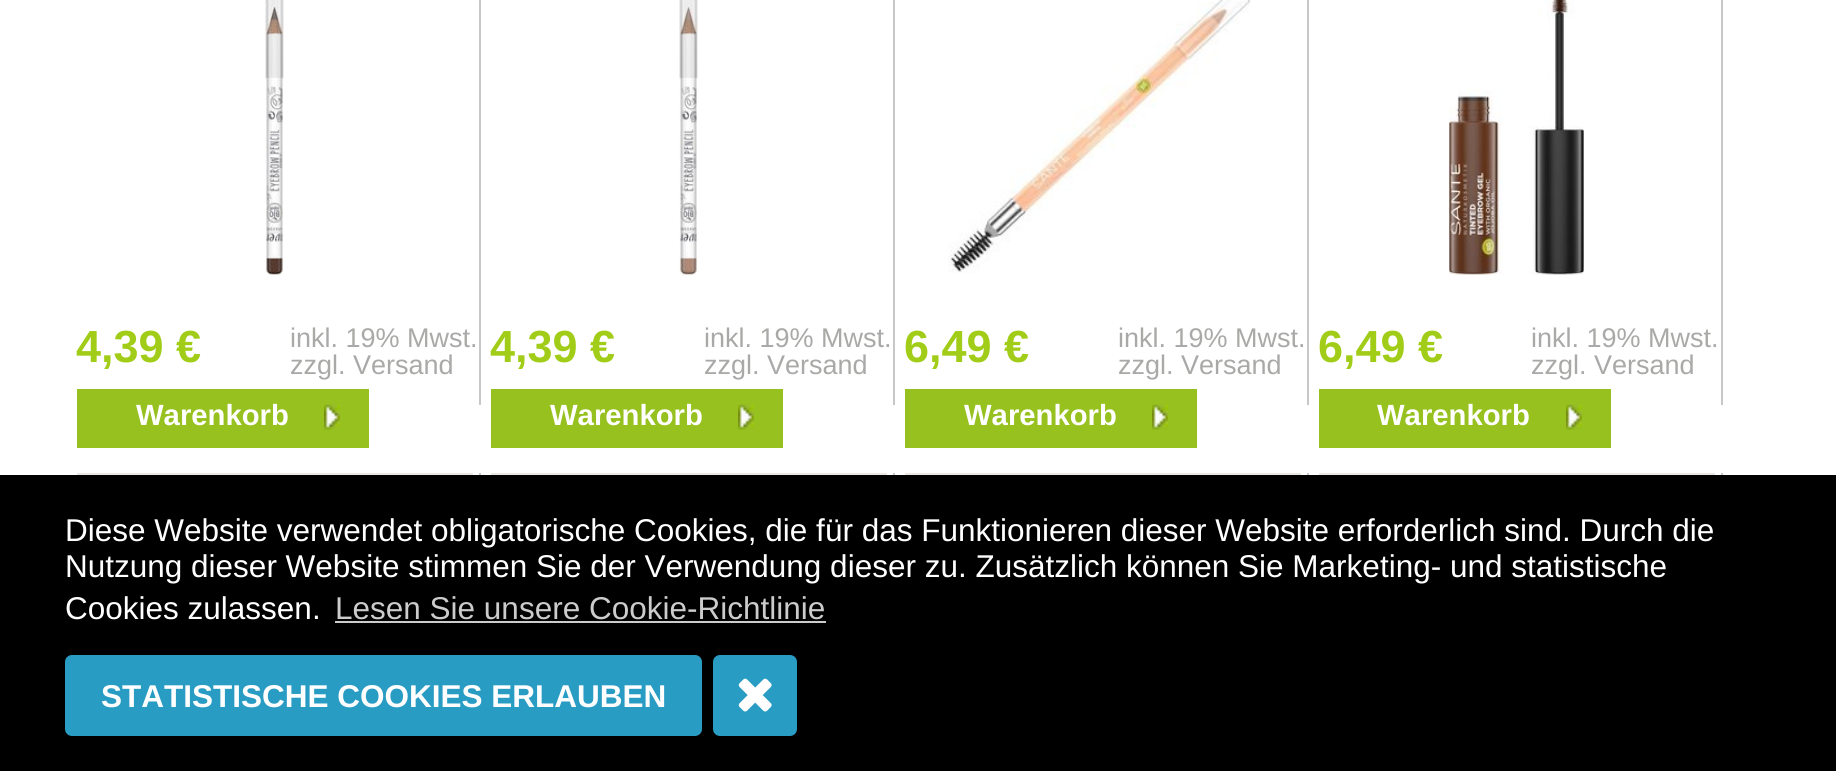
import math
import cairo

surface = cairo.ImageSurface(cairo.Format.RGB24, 1836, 771)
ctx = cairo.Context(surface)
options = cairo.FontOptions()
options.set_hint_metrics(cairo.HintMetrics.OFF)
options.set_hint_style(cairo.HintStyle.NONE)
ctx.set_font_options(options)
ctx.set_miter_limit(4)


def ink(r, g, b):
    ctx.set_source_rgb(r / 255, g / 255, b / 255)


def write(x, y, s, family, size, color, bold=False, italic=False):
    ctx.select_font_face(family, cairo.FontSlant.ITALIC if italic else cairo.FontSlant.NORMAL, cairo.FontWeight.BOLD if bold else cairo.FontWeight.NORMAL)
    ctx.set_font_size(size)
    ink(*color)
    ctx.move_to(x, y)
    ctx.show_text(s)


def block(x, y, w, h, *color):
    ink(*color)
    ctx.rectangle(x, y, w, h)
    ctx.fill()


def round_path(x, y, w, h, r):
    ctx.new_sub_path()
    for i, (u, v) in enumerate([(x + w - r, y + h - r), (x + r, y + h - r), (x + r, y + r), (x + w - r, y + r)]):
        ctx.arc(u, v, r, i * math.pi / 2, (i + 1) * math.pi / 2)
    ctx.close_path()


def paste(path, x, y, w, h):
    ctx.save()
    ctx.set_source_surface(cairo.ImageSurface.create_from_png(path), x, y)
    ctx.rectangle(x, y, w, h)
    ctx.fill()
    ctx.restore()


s1 = dict(family="Liberation Sans", size=45, color=(161, 205, 24), bold=True)
s2 = dict(family="Liberation Sans", size=29.25, color=(255, 255, 255), bold=True)
s3 = dict(family="Liberation Sans", size=27, color=(169, 169, 167))
s4 = dict(family="Liberation Sans", size=31.5, color=(255, 255, 255))
s5 = dict(family="Liberation Sans", size=31.5, color=(204, 204, 204))
s6 = dict(family="Liberation Sans", size=31.5, color=(255, 255, 255), bold=True)

ink(255, 255, 255)
ctx.paint()
block(479, 0, 2, 405, 199, 199, 199)
paste("pic1.png", 265, 0, 19, 275)
write(76, 362, "4,39 €", **s1)
block(77, 389, 292, 59, 150, 193, 31)
paste("pic2.png", 324, 404, 16, 26)
write(136, 425, "Warenkorb", **s2)
write(290, 347, "inkl. 19% Mwst.", **s3)
write(290, 374, "zzgl. Versand", **s3)
block(893, 0, 2, 405, 199, 199, 199)
paste("pic3.png", 679, 0, 19, 275)
write(490, 362, "4,39 €", **s1)
block(491, 389, 292, 59, 150, 193, 31)
paste("pic2.png", 738, 404, 16, 26)
write(550, 425, "Warenkorb", **s2)
write(704, 347, "inkl. 19% Mwst.", **s3)
write(704, 374, "zzgl. Versand", **s3)
block(1307, 0, 2, 405, 199, 199, 199)
paste("pic4.png", 948, 0, 303, 273)
write(904, 362, "6,49 €", **s1)
block(905, 389, 292, 59, 150, 193, 31)
paste("pic2.png", 1152, 404, 16, 26)
write(964, 425, "Warenkorb", **s2)
write(1118, 347, "inkl. 19% Mwst.", **s3)
write(1118, 374, "zzgl. Versand", **s3)
block(1721, 0, 2, 405, 199, 199, 199)
paste("pic5.png", 1449, 0, 135, 275)
write(1318, 362, "6,49 €", **s1)
block(1319, 389, 292, 59, 150, 193, 31)
paste("pic6.png", 1566, 404, 16, 26)
write(1377, 425, "Warenkorb", **s2)
write(1531, 347, "inkl. 19% Mwst.", **s3)
write(1531, 374, "zzgl. Versand", **s3)
block(479, 473, 2, 2, 199, 199, 199)
block(77, 473, 396, 2, 235, 232, 227)
block(893, 473, 2, 2, 199, 199, 199)
block(491, 473, 396, 2, 235, 232, 227)
block(1307, 473, 2, 2, 199, 199, 199)
block(905, 473, 396, 2, 235, 232, 227)
block(1721, 473, 2, 2, 199, 199, 199)
block(1319, 473, 396, 2, 235, 232, 227)
block(0, 475, 1836, 296, 0, 0, 0)
write(65, 541, "Diese Website verwendet obligatorische Cookies, die für das Funktionieren dieser Website erforderlich sind. Durch die", **s4)
write(65, 577, "Nutzung dieser Website stimmen Sie der Verwendung dieser zu. Zusätzlich können Sie Marketing- und statistische", **s4)
write(65, 619, "Cookies zulassen.", **s4)
write(335, 619, "Lesen Sie unsere Cookie-Richtlinie", **s5)
block(335, 621, 491, 2, 204, 204, 204)
ink(41, 156, 196)
round_path(65, 655, 637, 81, 7)
ctx.fill()
write(101, 707, "STATISTISCHE COOKIES ERLAUBEN", **s6)
ink(41, 156, 196)
round_path(713, 655, 84, 81, 7)
ctx.fill()
paste("pic7.png", 738, 678, 34, 34)
surface.write_to_png("screenshot.png")
